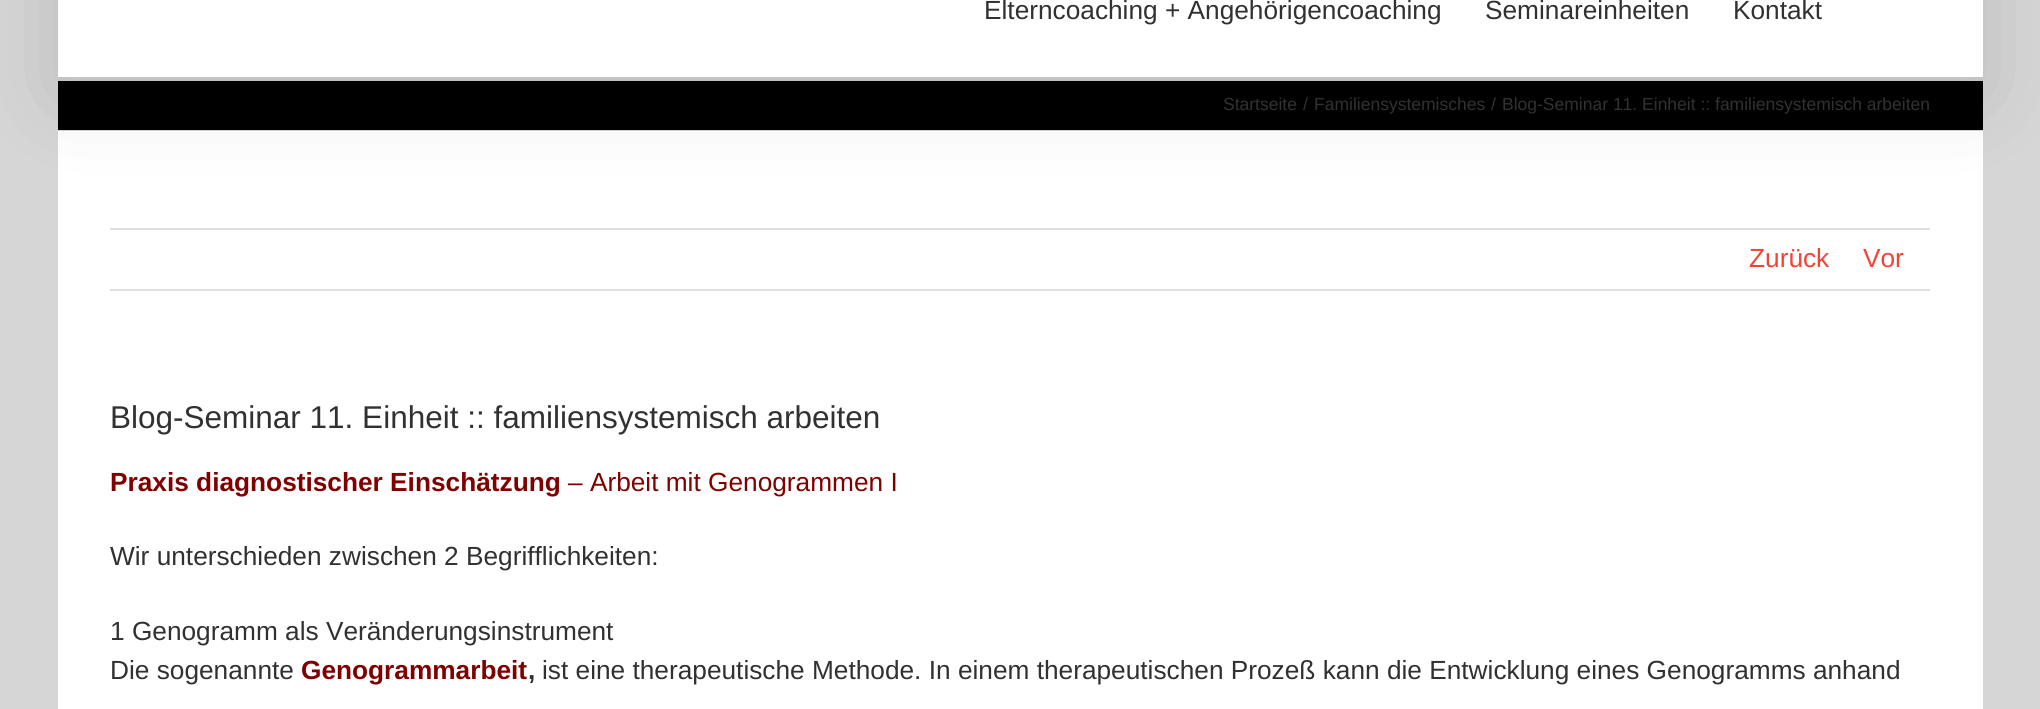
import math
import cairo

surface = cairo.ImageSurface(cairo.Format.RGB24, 2040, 709)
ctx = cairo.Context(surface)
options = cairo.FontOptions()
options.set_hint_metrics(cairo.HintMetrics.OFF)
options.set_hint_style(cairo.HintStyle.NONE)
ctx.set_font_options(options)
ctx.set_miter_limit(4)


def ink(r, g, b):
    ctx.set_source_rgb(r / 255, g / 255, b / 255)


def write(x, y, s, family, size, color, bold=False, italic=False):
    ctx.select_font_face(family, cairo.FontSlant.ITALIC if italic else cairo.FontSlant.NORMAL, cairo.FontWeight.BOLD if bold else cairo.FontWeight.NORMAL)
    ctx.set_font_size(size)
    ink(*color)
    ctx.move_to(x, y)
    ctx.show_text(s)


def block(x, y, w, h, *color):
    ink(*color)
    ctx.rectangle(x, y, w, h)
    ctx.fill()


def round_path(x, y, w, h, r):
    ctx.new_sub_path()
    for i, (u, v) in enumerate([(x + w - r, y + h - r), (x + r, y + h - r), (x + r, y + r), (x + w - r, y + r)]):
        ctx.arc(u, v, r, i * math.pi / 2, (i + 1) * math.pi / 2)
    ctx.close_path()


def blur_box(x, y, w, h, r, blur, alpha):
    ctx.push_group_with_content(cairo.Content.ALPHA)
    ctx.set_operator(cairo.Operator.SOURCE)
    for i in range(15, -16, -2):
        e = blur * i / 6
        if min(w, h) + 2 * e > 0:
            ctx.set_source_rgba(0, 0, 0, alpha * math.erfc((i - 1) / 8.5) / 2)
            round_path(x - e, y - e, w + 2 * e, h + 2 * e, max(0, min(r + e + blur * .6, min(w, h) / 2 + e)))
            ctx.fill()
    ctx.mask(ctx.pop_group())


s1 = dict(family="Liberation Sans", size=26.25, color=(49, 49, 49))
s2 = dict(family="Liberation Sans", size=17.5, color=(49, 49, 49))
s3 = dict(family="Liberation Sans", size=26.25, color=(244, 67, 54))
s4 = dict(family="Liberation Sans", size=31.5, color=(49, 49, 49))
s5 = dict(family="Liberation Sans", size=26.25, color=(128, 0, 0), bold=True)
s6 = dict(family="Liberation Sans", size=26.25, color=(128, 0, 0))
s7 = dict(family="Liberation Sans", size=26.25, color=(49, 49, 49), bold=True)

ink(215, 214, 214)
ctx.paint()
block(58, 81, 1925, 49, 0, 0, 0)
block(58, 79, 1925, 2, 210, 211, 212)
block(58, 130, 1925, 1, 210, 211, 212)
block(58, 131, 1925, 578, 255, 255, 255)
ink(0, 0, 0)
blur_box(61, -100, 1918, 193, 0, 44, 0.14)
block(58, 0, 1925, 77, 255, 255, 255)
block(58, 77, 1925, 2, 196, 196, 196)
write(984, 19, "Elterncoaching + Angehörigencoaching", **s1)
write(1485, 19, "Seminareinheiten", **s1)
write(1733, 19, "Kontakt", **s1)
write(1223, 110, "Startseite", **s2)
write(1303, 110, "/", **s2)
write(1314, 110, "Familiensystemisches", **s2)
write(1491, 110, "/", **s2)
write(1502, 110, "Blog-Seminar 11. Einheit :: familiensystemisch arbeiten", **s2)
block(110, 228, 1820, 2, 224, 222, 222)
block(110, 289, 1820, 2, 224, 222, 222)
write(1749, 267, "Zurück", **s3)
write(1863, 267, "Vor", **s3)
write(110, 428, "Blog-Seminar 11. Einheit :: familiensystemisch arbeiten", **s4)
write(110, 491, "Praxis diagnostischer Einschätzung", **s5)
write(568, 491, "– Arbeit mit Genogrammen I", **s6)
write(110, 565, "Wir unterschieden zwischen 2 Begrifflichkeiten:", **s1)
write(110, 640, "1 Genogramm als Veränderungsinstrument", **s1)
write(110, 679, "Die sogenannte", **s1)
write(301, 679, "Genogrammarbeit", **s5)
write(528, 679, ",", **s7)
write(542, 679, "ist eine therapeutische Methode. In einem therapeutischen Prozeß kann die Entwicklung eines Genogramms anhand", **s1)
surface.write_to_png("screenshot.png")
